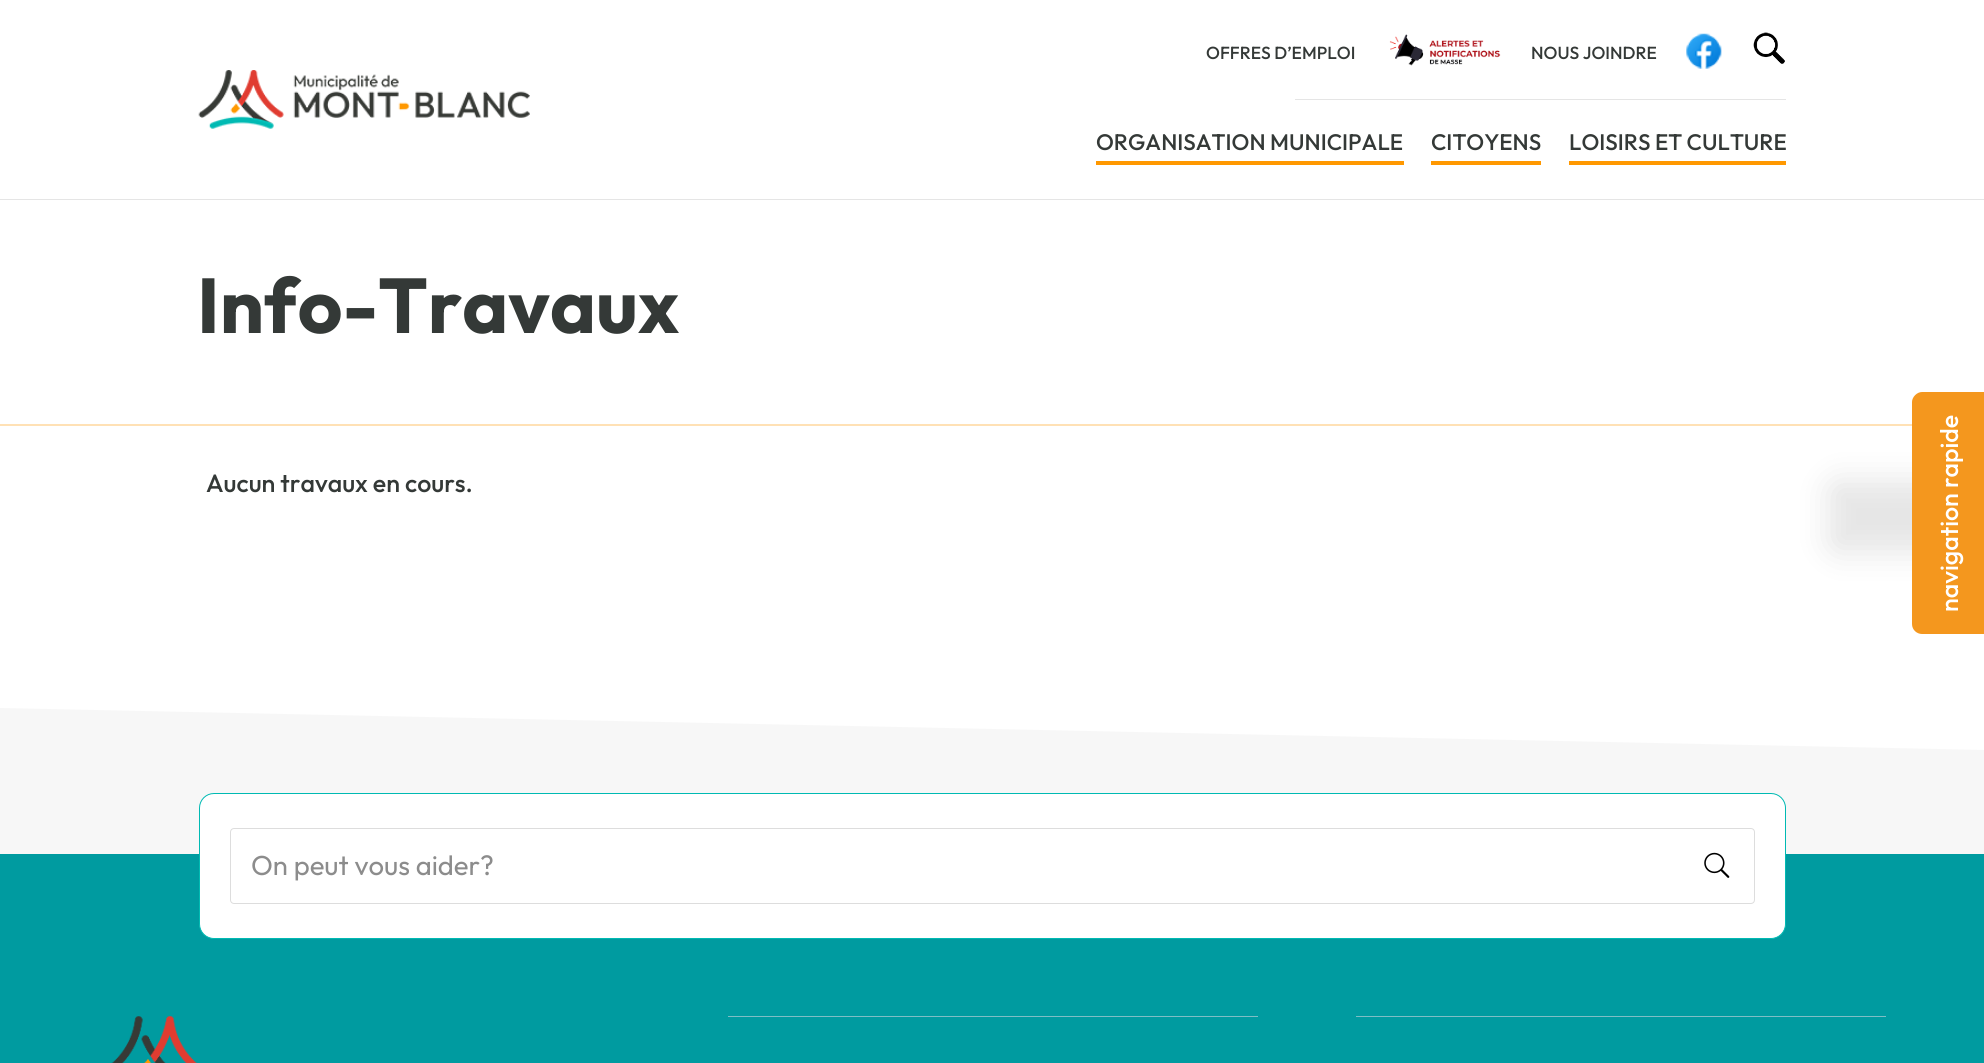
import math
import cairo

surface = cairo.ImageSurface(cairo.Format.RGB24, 1984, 1063)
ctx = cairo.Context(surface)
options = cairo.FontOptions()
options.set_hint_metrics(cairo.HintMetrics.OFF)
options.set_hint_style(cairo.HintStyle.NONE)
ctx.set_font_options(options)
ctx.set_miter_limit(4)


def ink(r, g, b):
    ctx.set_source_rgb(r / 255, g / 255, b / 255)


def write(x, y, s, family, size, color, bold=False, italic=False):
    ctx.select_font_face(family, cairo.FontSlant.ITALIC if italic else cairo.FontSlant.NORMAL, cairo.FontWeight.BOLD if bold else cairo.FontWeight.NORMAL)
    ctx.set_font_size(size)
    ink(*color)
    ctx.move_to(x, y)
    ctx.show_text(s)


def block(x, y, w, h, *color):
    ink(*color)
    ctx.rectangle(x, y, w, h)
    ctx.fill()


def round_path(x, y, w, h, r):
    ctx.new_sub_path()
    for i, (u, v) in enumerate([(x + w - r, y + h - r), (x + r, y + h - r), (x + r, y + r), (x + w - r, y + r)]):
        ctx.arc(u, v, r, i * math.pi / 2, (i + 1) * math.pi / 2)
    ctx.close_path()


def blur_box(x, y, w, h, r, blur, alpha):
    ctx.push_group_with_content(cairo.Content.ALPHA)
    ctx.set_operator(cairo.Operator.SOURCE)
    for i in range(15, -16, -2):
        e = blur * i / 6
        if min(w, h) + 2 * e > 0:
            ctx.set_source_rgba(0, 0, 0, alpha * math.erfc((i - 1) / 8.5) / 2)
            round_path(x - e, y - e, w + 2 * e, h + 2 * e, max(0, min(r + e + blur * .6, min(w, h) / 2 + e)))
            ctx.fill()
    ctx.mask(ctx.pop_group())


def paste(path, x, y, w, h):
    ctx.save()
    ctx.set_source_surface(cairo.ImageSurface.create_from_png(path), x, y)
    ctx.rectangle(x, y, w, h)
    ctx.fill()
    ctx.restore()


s1 = dict(family="Outfit Thin", size=77.5, color=(52, 57, 55))
s2 = dict(family="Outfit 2 Thin", size=25, color=(52, 57, 55))
s3 = dict(family="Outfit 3 Thin", size=27.5, color=(140, 140, 140))
s4 = dict(family="Outfit 2 Thin", size=17.5, color=(52, 57, 55))
s5 = dict(family="Outfit 2 Thin", size=22.5, color=(52, 57, 55))
s6 = dict(family="Outfit 2 Thin", size=25, color=(255, 255, 255))

ink(255, 255, 255)
ctx.paint()
block(0, 424, 1912, 2, 255, 225, 181)
write(197, 333, "Info-Travaux", **s1)
write(206, 492, "Aucun travaux en cours.", **s2)
block(0, 708, 1984, 146, 247, 247, 247)
ink(255, 255, 255)
ctx.new_path()
ctx.move_to(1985, 750)
ctx.line_to(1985, 708)
ctx.line_to(0, 708)
ctx.close_path()
ctx.fill()
block(0, 854, 1984, 209, 0, 155, 160)
ink(255, 255, 255)
round_path(199.5, 793.5, 1586, 145, 14.5)
ctx.fill_preserve()
ink(0, 186, 179)
ctx.set_line_width(1)
ctx.stroke()
round_path(230.5, 828.5, 1524, 75, 3.5)
ink(221, 221, 221)
ctx.stroke()
write(251, 875, "On peut vous aider?", **s3)
paste("pic1.png", 1704, 852, 26, 26)
paste("pic2.png", 111, 1016, 87, 47)
block(728, 1016, 530, 1, 126, 190, 197)
block(1356, 1016, 530, 1, 126, 190, 197)
block(0, 199, 1984, 1, 229, 229, 229)
paste("pic3.png", 198, 70, 332, 59)
write(1206, 59, "OFFRES D’EMPLOI", **s4)
paste("pic4.png", 1389, 34, 112, 32)
write(1531, 59, "NOUS JOINDRE", **s4)
paste("pic5.png", 1686, 33, 36, 36)
paste("pic6.png", 1753, 32, 32, 32)
block(1295, 99, 491, 1, 229, 229, 229)
block(1096, 161, 308, 4, 255, 152, 0)
write(1096, 150, "ORGANISATION MUNICIPALE", **s5)
block(1431, 161, 110, 4, 255, 152, 0)
write(1431, 150, "CITOYENS", **s5)
block(1569, 161, 217, 4, 255, 152, 0)
write(1569, 150, "LOISIRS ET CULTURE", **s5)
ink(0, 0, 0)
blur_box(1828, 480, 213, 73, 10, 15.5, 0.1)
ink(244, 151, 30)
ctx.new_path()
ctx.move_to(1912, 624)
ctx.line_to(1912, 402)
ctx.curve_to(1912, 397, 1917, 392, 1922, 392)
ctx.line_to(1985, 392)
ctx.line_to(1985, 634)
ctx.line_to(1922, 634)
ctx.curve_to(1917, 634, 1912, 630, 1912, 624)
ctx.close_path()
ctx.fill()
ctx.save()
ctx.translate(1958, 612)
ctx.rotate(-90 * math.pi / 180)
write(0, 0, "navigation rapide", **s6)
ctx.restore()
surface.write_to_png("screenshot.png")
